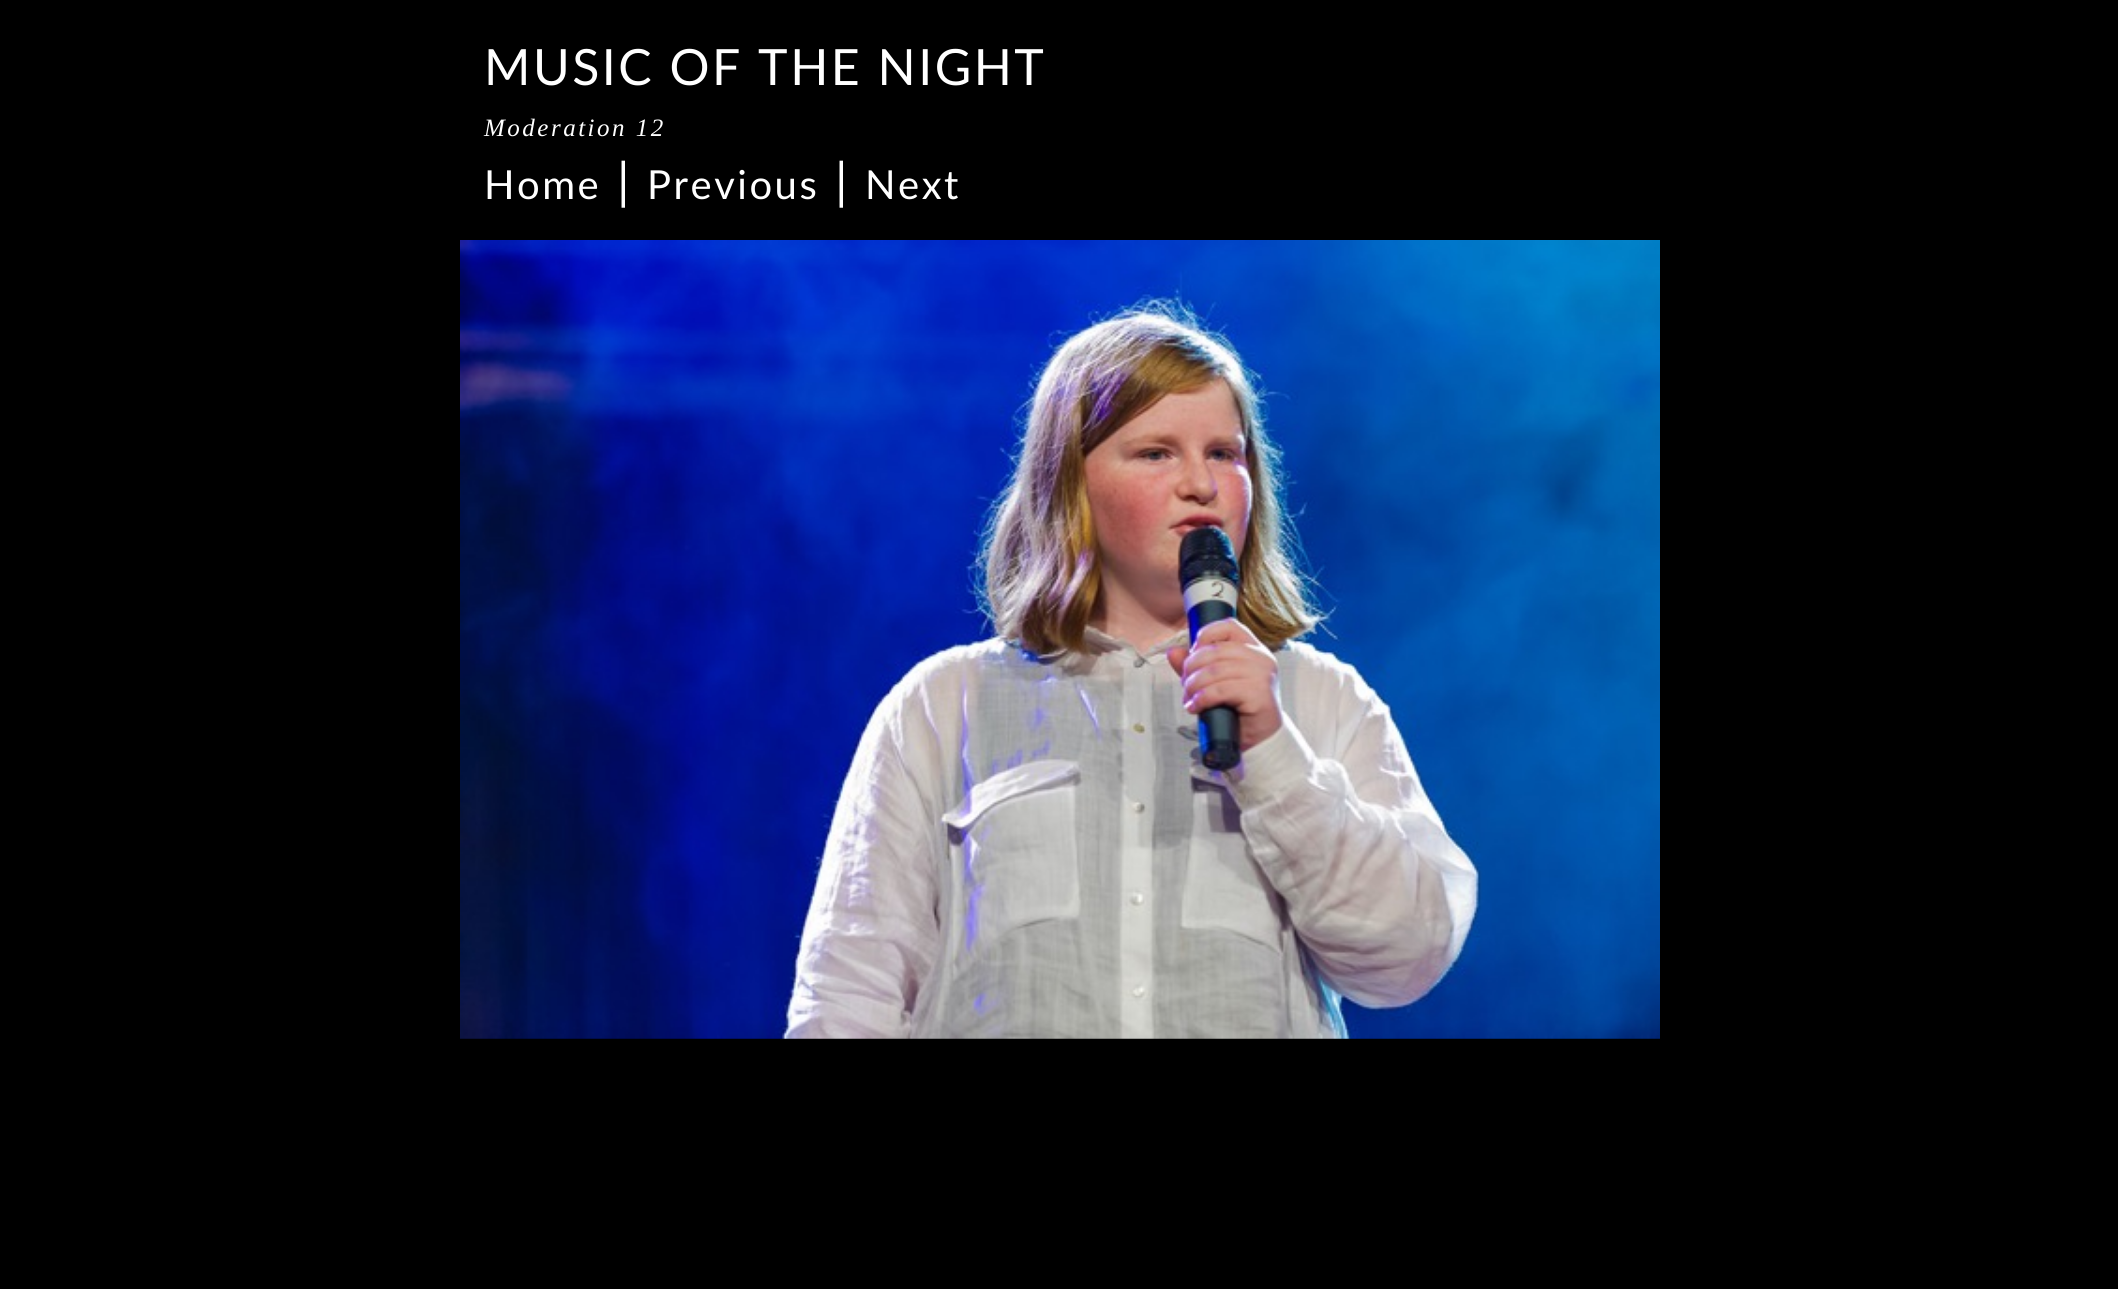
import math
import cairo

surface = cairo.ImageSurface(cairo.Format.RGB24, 2118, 1289)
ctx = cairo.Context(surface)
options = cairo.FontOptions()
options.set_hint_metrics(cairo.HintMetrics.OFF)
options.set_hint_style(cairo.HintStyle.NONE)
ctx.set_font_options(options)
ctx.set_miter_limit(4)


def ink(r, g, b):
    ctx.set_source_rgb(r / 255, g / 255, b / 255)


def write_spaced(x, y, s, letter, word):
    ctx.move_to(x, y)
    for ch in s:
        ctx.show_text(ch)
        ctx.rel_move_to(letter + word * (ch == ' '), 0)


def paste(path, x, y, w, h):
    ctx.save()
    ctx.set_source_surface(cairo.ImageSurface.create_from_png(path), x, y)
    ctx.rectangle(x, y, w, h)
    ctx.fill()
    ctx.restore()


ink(0, 0, 0)
ctx.paint()
ctx.select_font_face("Lato")
ctx.set_font_size(50)
ink(255, 255, 255)
write_spaced(484, 85, "MUSIC OF THE NIGHT", 2.5, 0)
ctx.select_font_face("Liberation Serif", cairo.FontSlant.ITALIC)
ctx.set_font_size(25)
write_spaced(484, 136, "Moderation 12", 2.5, 0)
ctx.select_font_face("Lato")
ctx.set_font_size(40)
write_spaced(484, 199, "Home", 2.5, 0)
ctx.set_font_size(50)
write_spaced(617, 199, "|", 2.5, 0)
ctx.set_font_size(40)
write_spaced(647, 199, "Previous", 2.5, 0)
ctx.set_font_size(50)
write_spaced(835, 199, "|", 2.5, 0)
ctx.set_font_size(40)
write_spaced(865, 199, "Next", 2.5, 0)
paste("pic1.png", 460, 240, 1200, 799)
surface.write_to_png("screenshot.png")
